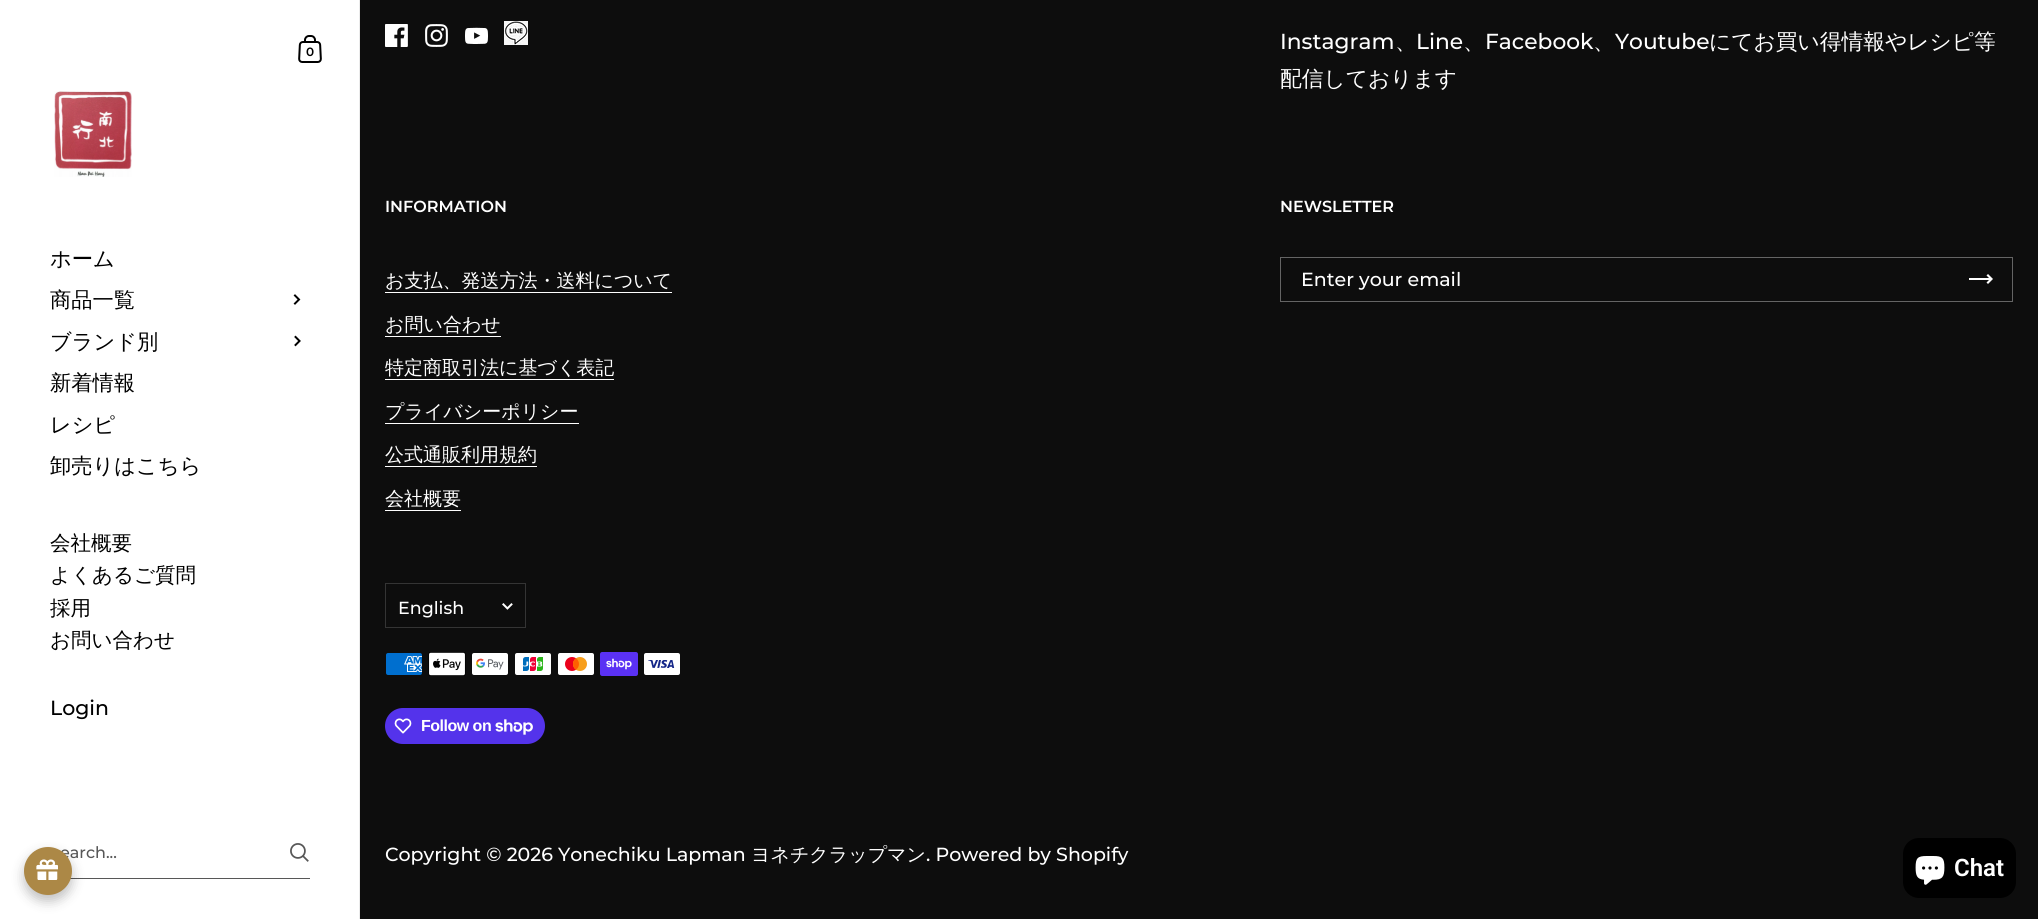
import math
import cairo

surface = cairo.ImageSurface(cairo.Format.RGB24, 2038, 919)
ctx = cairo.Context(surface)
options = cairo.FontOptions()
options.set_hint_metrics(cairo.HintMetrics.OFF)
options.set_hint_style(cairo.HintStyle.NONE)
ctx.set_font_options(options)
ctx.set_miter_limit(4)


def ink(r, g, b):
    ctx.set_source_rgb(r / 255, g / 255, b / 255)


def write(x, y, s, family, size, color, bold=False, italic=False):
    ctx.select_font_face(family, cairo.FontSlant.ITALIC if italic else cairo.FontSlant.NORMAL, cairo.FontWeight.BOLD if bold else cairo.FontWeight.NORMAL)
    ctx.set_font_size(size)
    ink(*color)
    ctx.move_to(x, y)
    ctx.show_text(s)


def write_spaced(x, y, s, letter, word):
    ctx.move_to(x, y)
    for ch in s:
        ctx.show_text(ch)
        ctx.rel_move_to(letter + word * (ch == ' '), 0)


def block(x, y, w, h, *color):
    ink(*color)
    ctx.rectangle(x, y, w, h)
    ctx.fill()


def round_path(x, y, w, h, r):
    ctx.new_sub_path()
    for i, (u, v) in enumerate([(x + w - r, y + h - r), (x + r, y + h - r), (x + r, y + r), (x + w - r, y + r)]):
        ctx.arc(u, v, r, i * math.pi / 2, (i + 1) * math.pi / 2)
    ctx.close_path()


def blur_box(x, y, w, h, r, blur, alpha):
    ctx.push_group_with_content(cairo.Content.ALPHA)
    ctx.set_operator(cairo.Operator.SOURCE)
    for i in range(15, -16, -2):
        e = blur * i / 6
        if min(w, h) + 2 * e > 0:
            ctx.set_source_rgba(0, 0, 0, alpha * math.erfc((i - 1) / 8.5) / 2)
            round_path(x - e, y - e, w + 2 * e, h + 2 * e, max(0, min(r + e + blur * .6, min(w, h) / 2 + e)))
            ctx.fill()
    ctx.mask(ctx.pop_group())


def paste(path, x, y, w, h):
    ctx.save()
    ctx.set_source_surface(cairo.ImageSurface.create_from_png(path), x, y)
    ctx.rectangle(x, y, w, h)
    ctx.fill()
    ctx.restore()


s1 = dict(family="Montserrat SemiBold", size=12, color=(0, 0, 0))
s2 = dict(family="WenQuanYi Zen Hei Medium", size=21.25, color=(0, 0, 0))
s3 = dict(family="WenQuanYi Zen Hei Medium", size=20.5, color=(0, 0, 0))
s4 = dict(family="Montserrat Medium", size=20.5, color=(0, 0, 0))
s5 = dict(family="Montserrat Medium", size=16, color=(87, 87, 87))
s6 = dict(family="Montserrat Medium", size=21.75, color=(255, 255, 255))
s7 = dict(family="WenQuanYi Zen Hei Medium", size=21.75, color=(255, 255, 255))
s8 = dict(family="Montserrat SemiBold", size=16, color=(255, 255, 255))
s9 = dict(family="WenQuanYi Zen Hei Medium", size=19, color=(255, 255, 255))
s10 = dict(family="Montserrat Medium", size=19, color=(255, 255, 255))
s11 = dict(family="Montserrat Medium", size=17.5, color=(255, 255, 255))
s12 = dict(family="Roboto SemiBold", size=24, color=(255, 255, 255))

ink(255, 255, 255)
ctx.paint()
block(359, 0, 1, 919, 235, 235, 235)
paste("pic1.png", 298, 35, 24, 28)
write(306, 56, "0", **s1)
paste("pic2.png", 54, 91, 78, 86)
write(50, 266, "ホーム", **s2)
write(50, 307, "商品一覧", **s2)
paste("pic3.png", 293, 294, 8, 11)
write(50, 349, "ブランド別", **s2)
paste("pic4.png", 294, 335, 7, 12)
write(50, 390, "新着情報", **s2)
write(50, 432, "レシピ", **s2)
write(50, 473, "卸売りはこちら", **s2)
write(50, 550, "会社概要", **s3)
write(50, 582, "よくあるご質問", **s3)
write(50, 615, "採用", **s3)
write(50, 647, "お問い合わせ", **s3)
write(50, 715, "Login", **s4)
block(70, 878, 240, 1, 87, 87, 87)
write(60, 858, "earch...", **s5)
paste("pic5.png", 290, 843, 19, 19)
block(360, 0, 1678, 919, 13, 13, 13)
paste("pic6.png", 385, 24, 23, 23)
paste("pic7.png", 425, 24, 23, 23)
paste("pic8.png", 465, 27, 23, 17)
paste("pic9.png", 504, 21, 24, 24)
write(1280, 49, "Instagram", **s6)
write(1395, 49, "、", **s7)
write(1416, 49, "Line", **s6)
write(1463, 49, "、", **s7)
write(1485, 49, "Facebook", **s6)
write(1593, 49, "、", **s7)
write(1615, 49, "Youtube", **s6)
write(1709, 49, "にてお買い得情報やレシピ等", **s7)
write(1280, 86, "配信しております", **s7)
write(385, 212, "INFORMATION", **s8)
write(385, 287, "お支払、発送方法・送料について", **s9)
block(385, 292, 287, 1, 255, 255, 255)
write(385, 331, "お問い合わせ", **s9)
block(385, 336, 116, 1, 255, 255, 255)
write(385, 374, "特定商取引法に基づく表記", **s9)
block(385, 379, 229, 1, 255, 255, 255)
write(385, 418, "プライバシーポリシー", **s9)
block(385, 423, 194, 1, 255, 255, 255)
write(385, 461, "公式通販利用規約", **s9)
block(385, 466, 152, 1, 255, 255, 255)
write(385, 505, "会社概要", **s9)
block(385, 510, 76, 1, 255, 255, 255)
write(1280, 212, "NEWSLETTER", **s8)
ctx.rectangle(1280.5, 257.5, 732, 44)
ink(100, 100, 100)
ctx.set_line_width(1)
ctx.stroke()
write(1301, 286, "Enter your email", **s10)
ctx.save()
ctx.rectangle(1969, 274, 24, 11)
ctx.clip()
ctx.set_fill_rule(cairo.FillRule.EVEN_ODD)
ctx.new_path()
ctx.move_to(1989, 280)
ctx.line_to(1986.5, 282.5)
ctx.line_to(1988, 284)
ctx.line_to(1993, 279)
ctx.line_to(1988, 274)
ctx.line_to(1986.5, 275.5)
ctx.line_to(1989, 278)
ctx.line_to(1959, 278)
ctx.line_to(1959, 280)
ctx.close_path()
ctx.fill()
ctx.restore()
paste("pic10.png", 502, 603, 11, 7)
ctx.rectangle(385.5, 583.5, 140, 44)
ink(52, 52, 52)
ctx.stroke()
write(398, 614, "English", **s11)
paste("pic11.png", 386, 653, 36, 22)
paste("pic12.png", 428, 652, 38, 24)
paste("pic13.png", 472, 653, 36, 22)
paste("pic14.png", 515, 653, 36, 22)
paste("pic15.png", 558, 653, 36, 22)
paste("pic16.png", 600, 652, 38, 24)
paste("pic17.png", 644, 653, 36, 22)
ink(84, 51, 235)
round_path(385, 708, 160, 36, 18)
ctx.fill()
paste("pic18.png", 394, 718, 18, 16)
ctx.select_font_face("Liberation Sans", cairo.FontSlant.NORMAL, cairo.FontWeight.BOLD)
ctx.set_font_size(16)
ink(255, 255, 255)
write_spaced(421, 731, "Follow on", -0.5, 0)
paste("pic19.png", 495, 719, 38, 16)
write(385, 861, "Copyright © 2026 Yonechiku Lapman", **s10)
write(751, 861, "ヨネチクラップマン", **s9)
write(926, 861, ". Powered by Shopify", **s10)
ink(0, 0, 0)
blur_box(24, 853, 48, 48, 24, 6, 0.25)
ink(172, 136, 70)
ctx.arc(48, 871, 24, 0, 2 * math.pi)
ctx.fill()
paste("pic20.png", 36, 859, 22, 21)
ink(0, 0, 0)
round_path(1903, 838, 113, 60, 16)
ctx.fill()
paste("pic21.png", 1915, 856, 30, 29)
write(1954, 876, "Chat", **s12)
surface.write_to_png("screenshot.png")
